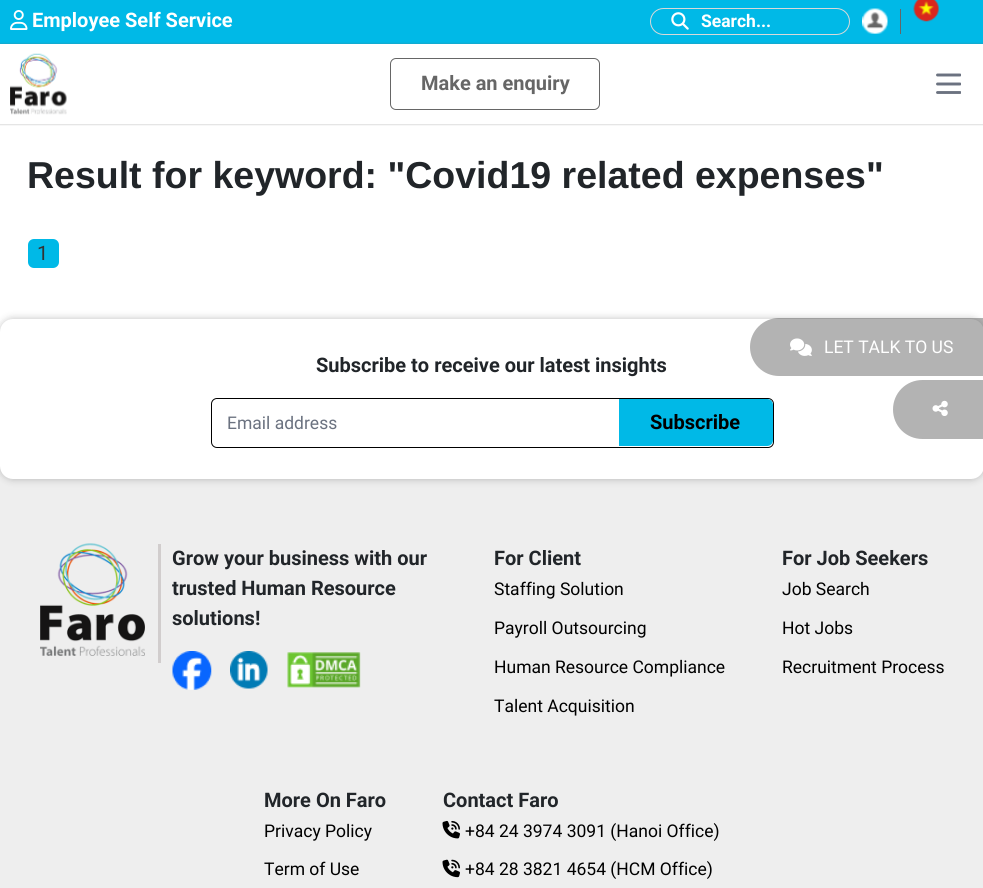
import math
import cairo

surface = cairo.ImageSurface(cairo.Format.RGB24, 983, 888)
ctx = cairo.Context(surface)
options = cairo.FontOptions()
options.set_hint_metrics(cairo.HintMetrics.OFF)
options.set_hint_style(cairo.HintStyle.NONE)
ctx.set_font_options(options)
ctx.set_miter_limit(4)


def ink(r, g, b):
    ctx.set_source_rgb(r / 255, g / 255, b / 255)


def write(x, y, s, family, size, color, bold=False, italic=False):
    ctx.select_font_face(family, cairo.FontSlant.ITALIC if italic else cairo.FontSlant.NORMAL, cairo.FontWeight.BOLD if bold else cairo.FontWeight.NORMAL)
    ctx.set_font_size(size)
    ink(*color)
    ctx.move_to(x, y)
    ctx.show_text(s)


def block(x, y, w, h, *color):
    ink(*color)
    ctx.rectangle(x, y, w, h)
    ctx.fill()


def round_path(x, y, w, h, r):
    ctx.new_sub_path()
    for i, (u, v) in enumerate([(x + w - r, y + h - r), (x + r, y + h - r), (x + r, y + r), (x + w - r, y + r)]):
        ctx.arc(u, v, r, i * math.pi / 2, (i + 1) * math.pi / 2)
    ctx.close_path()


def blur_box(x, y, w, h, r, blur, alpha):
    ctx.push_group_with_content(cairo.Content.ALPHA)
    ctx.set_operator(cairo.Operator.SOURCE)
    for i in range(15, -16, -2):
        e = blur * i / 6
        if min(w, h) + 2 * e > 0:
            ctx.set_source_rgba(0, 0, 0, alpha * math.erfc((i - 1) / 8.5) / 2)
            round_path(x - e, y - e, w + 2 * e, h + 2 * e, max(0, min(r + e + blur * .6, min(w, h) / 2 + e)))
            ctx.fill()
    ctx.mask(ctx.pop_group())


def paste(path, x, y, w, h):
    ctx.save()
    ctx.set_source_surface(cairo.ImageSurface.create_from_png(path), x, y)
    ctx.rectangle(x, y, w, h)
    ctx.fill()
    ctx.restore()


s1 = dict(family="Roboto", size=20, color=(255, 255, 255), bold=True)
s2 = dict(family="Roboto", size=17.5, color=(255, 255, 255), bold=True)
s3 = dict(family="Roboto", size=20, color=(102, 102, 102), bold=True)
s4 = dict(family="Roboto", size=17.5, color=(255, 255, 255))
s5 = dict(family="Liberation Sans", size=37.5, color=(33, 37, 41), bold=True)
s6 = dict(family="Roboto", size=20, color=(51, 51, 51))
s7 = dict(family="Roboto", size=20, color=(33, 37, 41), bold=True)
s8 = dict(family="Roboto", size=17.5, color=(107, 114, 128))
s9 = dict(family="Roboto", size=20, color=(0, 0, 0), bold=True)
s10 = dict(family="Roboto", size=17.5, color=(0, 0, 0))

ink(255, 255, 255)
ctx.paint()
block(0, 0, 983, 44, 0, 185, 231)
paste("pic1.png", 10, 10, 18, 20)
write(32, 27, "Employee Self Service", **s1)
round_path(650.5, 8.5, 199, 26, 13)
ink(217, 217, 217)
ctx.set_line_width(1)
ctx.stroke()
paste("pic2.png", 671, 12, 18, 18)
write(701, 27, "Search...", **s2)
paste("pic3.png", 862, 8, 26, 26)
block(900, 9, 1, 25, 102, 102, 102)
paste("pic4.png", 913, 0, 26, 22)
ink(99, 99, 99)
blur_box(-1, 43, 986, 82, 0, 0.5, 0.2)
block(0, 44, 983, 80, 255, 255, 255)
paste("pic5.png", 10, 53, 57, 62)
round_path(390.5, 58.5, 209, 51, 5.5)
ink(102, 102, 102)
ctx.stroke()
write(421, 90, "Make an enquiry", **s3)
ctx.save()
ctx.rectangle(936, 71, 25, 25)
ctx.clip()
ctx.new_path()
ctx.move_to(937.5, 75)
ctx.line_to(960, 75)
ctx.move_to(937.5, 84)
ctx.line_to(960, 84)
ctx.move_to(937.5, 92.5)
ctx.line_to(960, 92.5)
ink(107, 114, 128)
ctx.set_line_width(2.9)
ctx.set_line_cap(cairo.LineCap.ROUND)
ctx.set_line_join(cairo.LineJoin.ROUND)
ctx.stroke()
ctx.restore()
block(0, 466, 983, 422, 238, 238, 238)
ink(0, 0, 0)
blur_box(0, 319, 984, 160, 13, 4, 0.25)
ink(255, 255, 255)
round_path(0, 319, 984, 160, 13)
ctx.fill()
ctx.set_source_rgba(0, 0, 0, 0.3)
ctx.new_path()
ctx.move_to(779, 318)
ctx.line_to(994, 318)
ctx.line_to(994, 376)
ctx.line_to(779, 376)
ctx.curve_to(763, 376, 750, 363, 750, 347)
ctx.curve_to(750, 331, 763, 318, 779, 318)
ctx.close_path()
ctx.fill()
paste("pic6.png", 790, 338, 22, 18)
write(824, 353, "LET TALK TO US", **s4)
ink(179, 179, 179)
ctx.new_path()
ctx.move_to(922.5, 380)
ctx.line_to(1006, 380)
ctx.line_to(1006, 439)
ctx.line_to(922.5, 439)
ctx.curve_to(906, 439, 893, 426, 893, 409.5)
ctx.curve_to(893, 393, 906, 380, 922.5, 380)
ctx.close_path()
ctx.fill()
paste("pic7.png", 932, 400, 16, 16)
write(27, 188, "Result for keyword: \"Covid19 related expenses\"", **s5)
ink(0, 185, 231)
round_path(28, 239, 31, 29, 6)
ctx.fill()
write(37, 260, "1", **s6)
write(316, 372, "Subscribe to receive our latest insights", **s7)
round_path(211.5, 398.5, 562, 49, 5.5)
ink(0, 0, 0)
ctx.stroke()
ink(255, 255, 255)
round_path(213, 399, 406, 47, 6)
ctx.fill()
write(227, 429, "Email address", **s8)
ink(0, 185, 231)
ctx.new_path()
ctx.move_to(619, 399)
ctx.line_to(767, 399)
ctx.curve_to(770.5, 399, 773, 401.5, 773, 405)
ctx.line_to(773, 440)
ctx.curve_to(773, 443.5, 770.5, 446, 767, 446)
ctx.line_to(619, 446)
ctx.close_path()
ctx.fill()
write(650, 429, "Subscribe", **s9)
paste("pic8.png", 40, 543, 105, 113)
block(158, 544, 3, 119, 209, 205, 205)
write(172, 565, "Grow your business with our", **s7)
write(172, 595, "trusted Human Resource", **s7)
write(172, 625, "solutions!", **s7)
paste("pic9.png", 172, 651, 40, 39)
paste("pic10.png", 230, 651, 38, 38)
paste("pic11.png", 287, 652, 74, 36)
write(494, 565, "For Client", **s7)
write(494, 595, "Staffing Solution", **s10)
write(494, 634, "Payroll Outsourcing", **s10)
write(494, 673, "Human Resource Compliance", **s10)
write(494, 712, "Talent Acquisition", **s10)
write(782, 565, "For Job Seekers", **s7)
write(782, 595, "Job Search", **s10)
write(782, 634, "Hot Jobs", **s10)
write(782, 673, "Recruitment Process", **s10)
write(264, 807, "More On Faro", **s7)
write(264, 837, "Privacy Policy", **s10)
write(264, 875, "Term of Use", **s10)
write(443, 807, "Contact Faro", **s7)
paste("pic12.png", 442, 820, 18, 19)
write(465, 837, "+84 24 3974 3091 (Hanoi Office)", **s10)
paste("pic13.png", 442, 859, 18, 19)
write(465, 875, "+84 28 3821 4654 (HCM Office)", **s10)
surface.write_to_png("screenshot.png")
